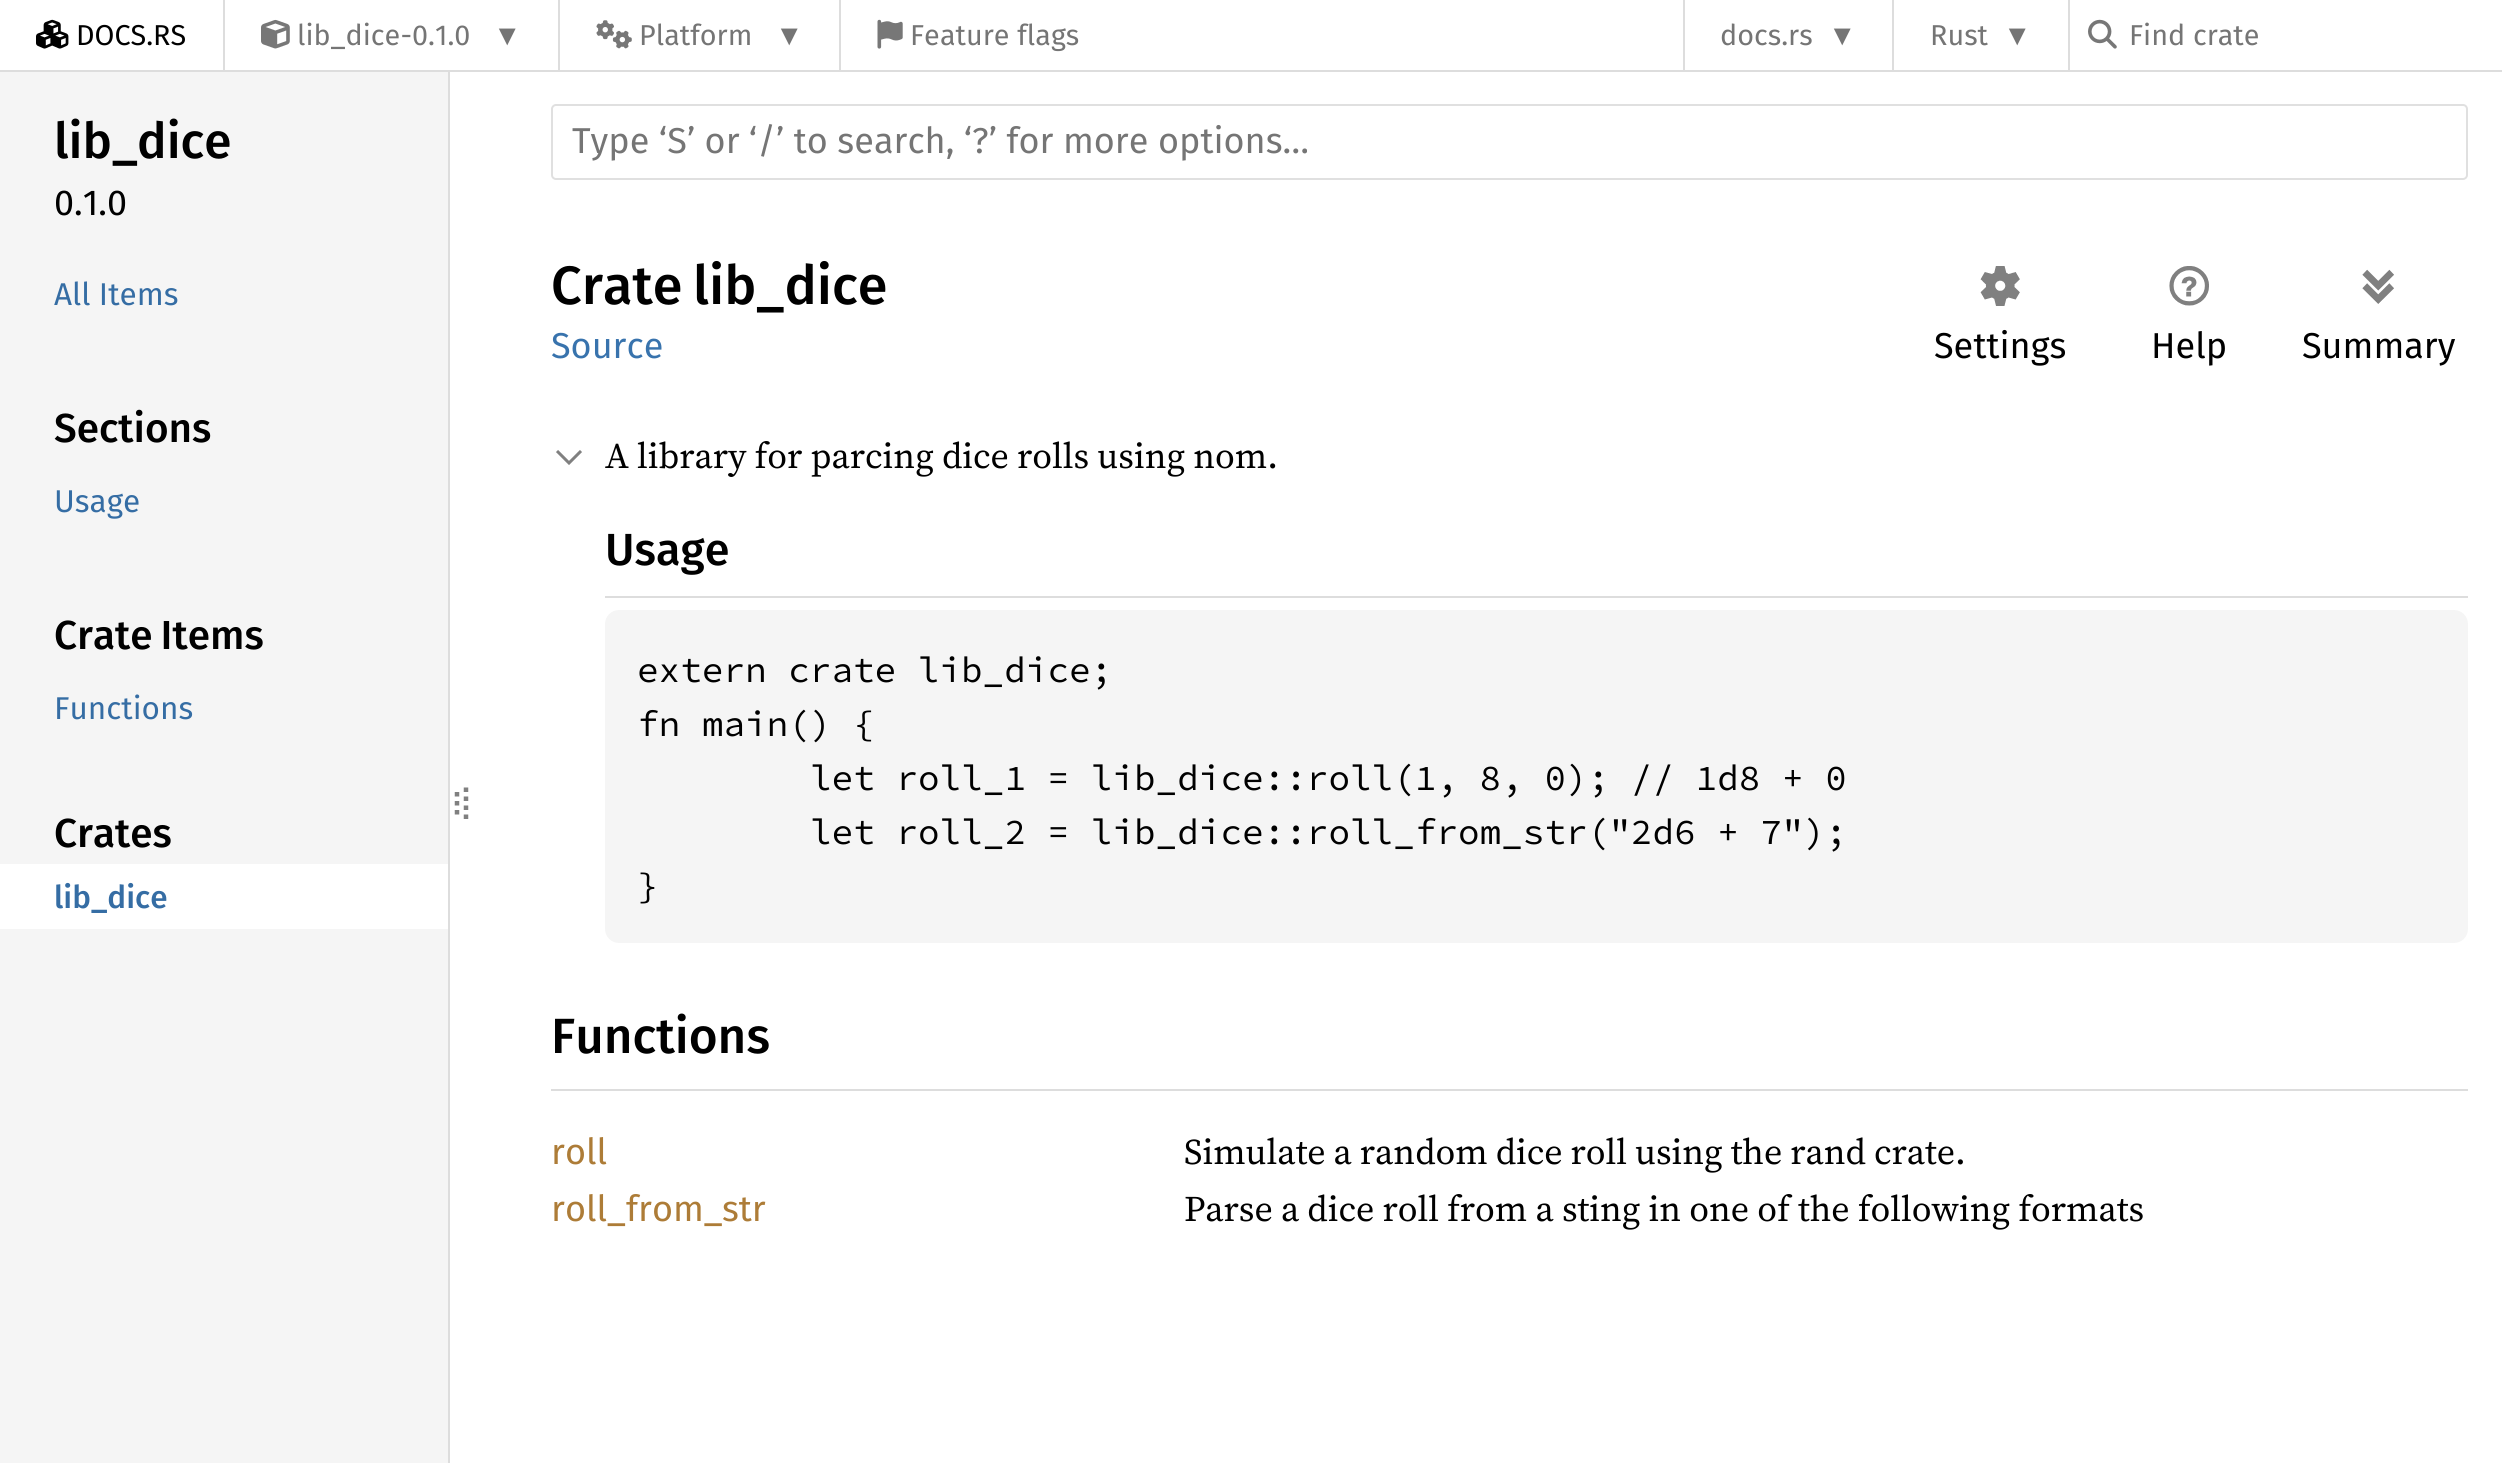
import math
import cairo

surface = cairo.ImageSurface(cairo.Format.RGB24, 2502, 1463)
ctx = cairo.Context(surface)
options = cairo.FontOptions()
options.set_hint_metrics(cairo.HintMetrics.OFF)
options.set_hint_style(cairo.HintStyle.NONE)
ctx.set_font_options(options)
ctx.set_miter_limit(4)


def ink(r, g, b):
    ctx.set_source_rgb(r / 255, g / 255, b / 255)


def write(x, y, s, family, size, color, bold=False, italic=False):
    ctx.select_font_face(family, cairo.FontSlant.ITALIC if italic else cairo.FontSlant.NORMAL, cairo.FontWeight.BOLD if bold else cairo.FontWeight.NORMAL)
    ctx.set_font_size(size)
    ink(*color)
    ctx.move_to(x, y)
    ctx.show_text(s)


def write_spaced(x, y, s, letter, word):
    ctx.move_to(x, y)
    for ch in s:
        ctx.show_text(ch)
        ctx.rel_move_to(letter + word * (ch == ' '), 0)


def block(x, y, w, h, *color):
    ink(*color)
    ctx.rectangle(x, y, w, h)
    ctx.fill()


def round_path(x, y, w, h, r):
    ctx.new_sub_path()
    for i, (u, v) in enumerate([(x + w - r, y + h - r), (x + r, y + h - r), (x + r, y + r), (x + w - r, y + r)]):
        ctx.arc(u, v, r, i * math.pi / 2, (i + 1) * math.pi / 2)
    ctx.close_path()


def paste(path, x, y, w, h):
    ctx.save()
    ctx.set_source_surface(cairo.ImageSurface.create_from_png(path), x, y)
    ctx.rectangle(x, y, w, h)
    ctx.fill()
    ctx.restore()


s1 = dict(family="Fira Sans", size=28.75, color=(0, 0, 0))
s2 = dict(family="Fira Sans", size=28.75, color=(117, 117, 117))
s3 = dict(family="Liberation Sans", size=28.75, color=(117, 117, 117))
s4 = dict(family="Fira Sans Medium", size=49.5, color=(0, 0, 0))
s5 = dict(family="Fira Sans", size=36, color=(0, 0, 0))
s6 = dict(family="Fira Sans", size=31.5, color=(53, 109, 164))
s7 = dict(family="Fira Sans Medium", size=40.5, color=(0, 0, 0))
s8 = dict(family="Fira Sans Medium", size=31.5, color=(53, 109, 164))
s9 = dict(family="Fira Sans", size=36, color=(117, 117, 117))
s10 = dict(family="Fira Sans Medium", size=54, color=(0, 0, 0))
s11 = dict(family="Fira Sans", size=36, color=(56, 115, 173))
s12 = dict(family="Fira Sans Medium", size=45, color=(0, 0, 0))
s13 = dict(family="Source Code Pro", size=36, color=(0, 0, 0))
s14 = dict(family="Fira Sans", size=36, color=(173, 124, 55))

ink(255, 255, 255)
ctx.paint()
block(0, 70, 2502, 2, 221, 221, 221)
paste("pic1.png", 36, 19, 33, 30)
write(76, 45, "DOCS.RS", **s1)
block(223, 0, 2, 70, 221, 221, 221)
paste("pic2.png", 261, 19, 29, 30)
write(297, 45, "lib_dice-0.1.0", **s2)
write(493, 45, "▼", **s3)
block(558, 0, 2, 70, 221, 221, 221)
paste("pic3.png", 596, 20, 36, 29)
write(639, 45, "Platform", **s2)
write(775, 45, "▼", **s3)
block(839, 0, 2, 70, 221, 221, 221)
paste("pic4.png", 877, 19, 26, 30)
write(910, 45, "Feature flags", **s2)
block(1683, 0, 2, 70, 221, 221, 221)
write(1720, 45, "docs.rs", **s2)
write(1828, 45, "▼", **s3)
block(1892, 0, 2, 70, 221, 221, 221)
write(1930, 45, "Rust", **s2)
write(2003, 45, "▼", **s3)
block(2068, 0, 2, 70, 221, 221, 221)
paste("pic5.png", 2088, 19, 29, 30)
write(2129, 45, "Find crate", **s2)
block(0, 72, 448, 1391, 245, 245, 245)
block(448, 72, 2, 1391, 221, 221, 221)
write(54, 158, "lib_", **s4)
write(137, 158, "dice", **s4)
write(54, 215, "0.1.0", **s5)
write(54, 305, "All Items", **s6)
write(54, 442, "Sections", **s7)
write(54, 512, "Usage", **s6)
ctx.select_font_face("Fira Sans Medium")
ctx.set_font_size(40.5)
ink(0, 0, 0)
write_spaced(54, 649, "Crate Items", 0, -2)
write(54, 719, "Functions", **s6)
write(54, 847, "Crates", **s7)
block(0, 864, 448, 65, 255, 255, 255)
write(54, 908, "lib_dice", **s8)
ctx.new_path()
ctx.move_to(457, 792)
ctx.line_to(457, 796.5)
ctx.move_to(457, 801)
ctx.line_to(457, 805.5)
ctx.move_to(457, 810)
ctx.line_to(457, 814.5)
ink(128, 128, 128)
ctx.set_line_width(4.5)
ctx.stroke()
ctx.new_path()
ctx.move_to(466, 787.5)
ctx.line_to(466, 823.5)
ctx.set_dash([4.5, 4.5])
ctx.stroke()
round_path(552, 105, 1915, 74, 4)
ink(224, 224, 224)
ctx.set_line_width(2)
ctx.set_dash([])
ctx.stroke()
write(572, 153, "Type ‘S’ or ‘/’ to search, ‘?’ for more options…", **s9)
write(551, 304, "Crate", **s10)
write(693, 304, "lib_dice", **s10)
write(551, 358, "Source", **s11)
paste("pic6.png", 1980, 266, 40, 40)
write(1934, 358, "Settings", **s5)
paste("pic7.png", 2169, 266, 40, 40)
write(2151, 358, "Help", **s5)
paste("pic8.png", 2362, 269, 32, 35)
write(2302, 358, "Summary", **s5)
ctx.new_path()
ctx.move_to(557, 451)
ctx.line_to(569, 463)
ctx.line_to(581, 451)
ink(128, 128, 128)
ctx.set_line_width(3)
ctx.stroke()
ctx.select_font_face("Source Serif 4")
ink(0, 0, 0)
write_spaced(605, 468, "A library for parcing dice rolls using nom.", 0, -0.25)
block(605, 596, 1863, 2, 221, 221, 221)
write(605, 565, "Usage", **s12)
ink(245, 245, 245)
round_path(605, 610, 1863, 333, 14)
ctx.fill()
write(637, 682, "extern crate lib_dice;", **s13)
write(637, 736, "fn main() {", **s13)
write(810, 790, "let roll_1 = lib_dice::roll(1, 8, 0); // 1d8 + 0", **s13)
write(810, 844, "let roll_2 = lib_dice::roll_from_str(\"2d6 + 7\");", **s13)
write(637, 898, "}", **s13)
block(551, 1089, 1917, 2, 221, 221, 221)
write(551, 1053, "Functions", **s4)
write(551, 1164, "roll", **s14)
ctx.select_font_face("Source Serif 4")
ink(0, 0, 0)
write_spaced(1184, 1164, "Simulate a random dice roll using the rand crate.", 0, -0.5)
write(551, 1221, "roll_", **s14)
write(626, 1221, "from_", **s14)
write(722, 1221, "str", **s14)
ctx.select_font_face("Source Serif 4")
ink(0, 0, 0)
write_spaced(1184, 1221, "Parse a dice roll from a sting in one of the following formats", 0, -0.25)
surface.write_to_png("screenshot.png")
